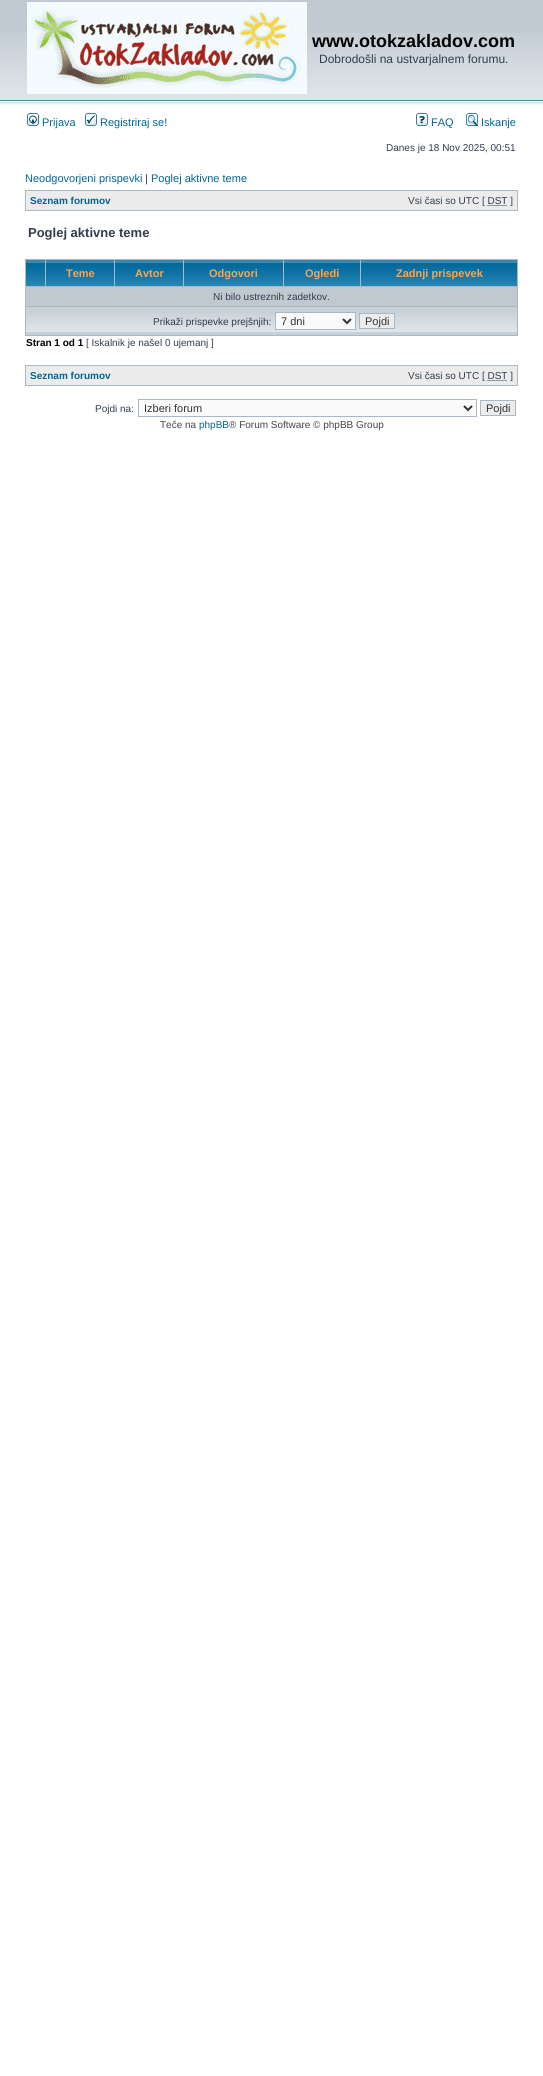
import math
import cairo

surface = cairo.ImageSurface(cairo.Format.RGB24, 543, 2076)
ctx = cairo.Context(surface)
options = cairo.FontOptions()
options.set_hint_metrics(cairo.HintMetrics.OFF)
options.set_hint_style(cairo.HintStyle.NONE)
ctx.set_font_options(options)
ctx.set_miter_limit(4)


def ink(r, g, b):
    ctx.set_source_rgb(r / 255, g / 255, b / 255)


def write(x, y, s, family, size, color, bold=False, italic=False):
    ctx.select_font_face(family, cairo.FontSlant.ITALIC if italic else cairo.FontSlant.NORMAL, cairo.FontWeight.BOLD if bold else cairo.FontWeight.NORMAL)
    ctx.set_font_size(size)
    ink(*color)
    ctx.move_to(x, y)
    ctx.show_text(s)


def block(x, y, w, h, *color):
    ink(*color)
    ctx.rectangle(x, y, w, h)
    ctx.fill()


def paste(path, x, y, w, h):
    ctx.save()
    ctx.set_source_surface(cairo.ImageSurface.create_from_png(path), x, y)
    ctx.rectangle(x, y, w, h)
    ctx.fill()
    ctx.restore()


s1 = dict(family="Liberation Sans", size=18, color=(0, 0, 0), bold=True)
s2 = dict(family="Liberation Sans", size=12, color=(50, 61, 79))
s3 = dict(family="Liberation Sans", size=11, color=(0, 101, 151))
s4 = dict(family="Liberation Sans", size=10, color=(50, 61, 79))
s5 = dict(family="Liberation Sans", size=11, color=(50, 61, 79))
s6 = dict(family="Liberation Sans", size=10, color=(0, 101, 151), bold=True)
s7 = dict(family="Liberation Sans", size=13, color=(50, 61, 79), bold=True)
s8 = dict(family="Liberation Sans", size=11, color=(255, 163, 79), bold=True)
s9 = dict(family="Liberation Sans", size=11, color=(51, 51, 51))
s10 = dict(family="Liberation Sans", size=10, color=(0, 0, 0), bold=True)
s11 = dict(family="Liberation Sans", size=10, color=(68, 68, 68))
s12 = dict(family="Liberation Sans", size=10, color=(0, 101, 151))

ink(255, 255, 255)
ctx.paint()
block(0, 0, 543, 33, 193, 202, 210)
paste("pic1.png", 0, 33, 543, 78)
paste("pic2.png", 27, 2, 280, 92)
write(312, 47, "www.otokzakladov.com", **s1)
write(319, 63, "Dobrodošli na ustvarjalnem forumu.", **s2)
paste("pic3.png", 27, 113, 12, 13)
write(42, 126, "Prijava", **s3)
paste("pic4.png", 85, 113, 12, 13)
write(100, 126, "Registriraj se!", **s3)
paste("pic5.png", 416, 113, 12, 13)
write(431, 126, "FAQ", **s3)
paste("pic6.png", 466, 113, 12, 13)
write(481, 126, "Iskanje", **s3)
write(386, 151, "Danes je 18 Nov 2025, 00:51", **s4)
write(25, 182, "Neodgovorjeni prispevki", **s3)
write(145, 182, "|", **s5)
write(151, 182, "Poglej aktivne teme", **s3)
block(25, 190, 493, 21, 169, 184, 194)
block(26, 191, 491, 19, 236, 236, 236)
write(30, 204, "Seznam forumov", **s6)
write(408, 204, "Vsi časi so UTC [ DST ]", **s4)
ctx.new_path()
ctx.move_to(487.5, 205.5)
ctx.line_to(507.5, 205.5)
ctx.set_line_width(1)
ctx.set_dash([1, 1])
ctx.stroke()
write(28, 237, "Poglej aktivne teme", **s7)
block(25, 259, 493, 77, 169, 184, 194)
paste("pic7.png", 26, 260, 19, 26)
paste("pic8.png", 46, 260, 68, 26)
write(66, 277, "Teme", **s8)
paste("pic8.png", 115, 260, 68, 26)
write(135, 277, "Avtor", **s8)
paste("pic9.png", 184, 260, 99, 26)
write(209, 277, "Odgovori", **s8)
paste("pic10.png", 284, 260, 76, 26)
write(305, 277, "Ogledi", **s8)
paste("pic11.png", 361, 260, 156, 26)
write(396, 277, "Zadnji prispevek", **s8)
block(26, 287, 491, 19, 192, 200, 208)
write(213, 300, "Ni bilo ustreznih zadetkov.", **s4)
block(26, 307, 491, 28, 199, 208, 215)
paste("pic12.png", 26, 313, 491, 19)
write(153, 325, "Prikaži prispevke prejšnjih:", **s4)
ink(250, 250, 250)
ctx.rectangle(275.5, 312.5, 80, 17)
ctx.fill_preserve()
ink(169, 184, 194)
ctx.set_dash([])
ctx.stroke()
ctx.new_path()
ctx.move_to(343, 319)
ctx.line_to(347, 323)
ctx.line_to(351, 319)
ink(51, 51, 51)
ctx.set_line_width(2)
ctx.stroke()
write(281, 325, "7 dni", **s9)
ink(236, 236, 236)
ctx.rectangle(359.5, 313.5, 35, 15)
ctx.fill_preserve()
ink(169, 184, 194)
ctx.set_line_width(1)
ctx.stroke()
write(365, 325, "Pojdi", **s9)
write(26, 346, "Stran 1 od 1", **s10)
write(86, 346, "[ Iskalnik je našel 0 ujemanj ]", **s4)
block(25, 365, 493, 21, 169, 184, 194)
block(26, 366, 491, 19, 236, 236, 236)
write(30, 379, "Seznam forumov", **s6)
write(408, 379, "Vsi časi so UTC [ DST ]", **s4)
ctx.new_path()
ctx.move_to(487.5, 380.5)
ctx.line_to(507.5, 380.5)
ctx.set_dash([1, 1])
ctx.stroke()
write(95, 412, "Pojdi na:", **s4)
ink(250, 250, 250)
ctx.rectangle(138.5, 399.5, 338, 17)
ctx.fill_preserve()
ink(169, 184, 194)
ctx.set_dash([])
ctx.stroke()
ctx.new_path()
ctx.move_to(464, 406)
ctx.line_to(468, 410)
ctx.line_to(472, 406)
ink(51, 51, 51)
ctx.set_line_width(2)
ctx.stroke()
write(144, 412, "Izberi forum", **s9)
ink(236, 236, 236)
ctx.rectangle(480.5, 400.5, 35, 15)
ctx.fill_preserve()
ink(169, 184, 194)
ctx.set_line_width(1)
ctx.stroke()
write(486, 412, "Pojdi", **s9)
write(160, 428, "Teče na", **s11)
write(199, 428, "phpBB", **s12)
write(229, 428, "® Forum Software © phpBB Group", **s11)
surface.write_to_png("screenshot.png")
